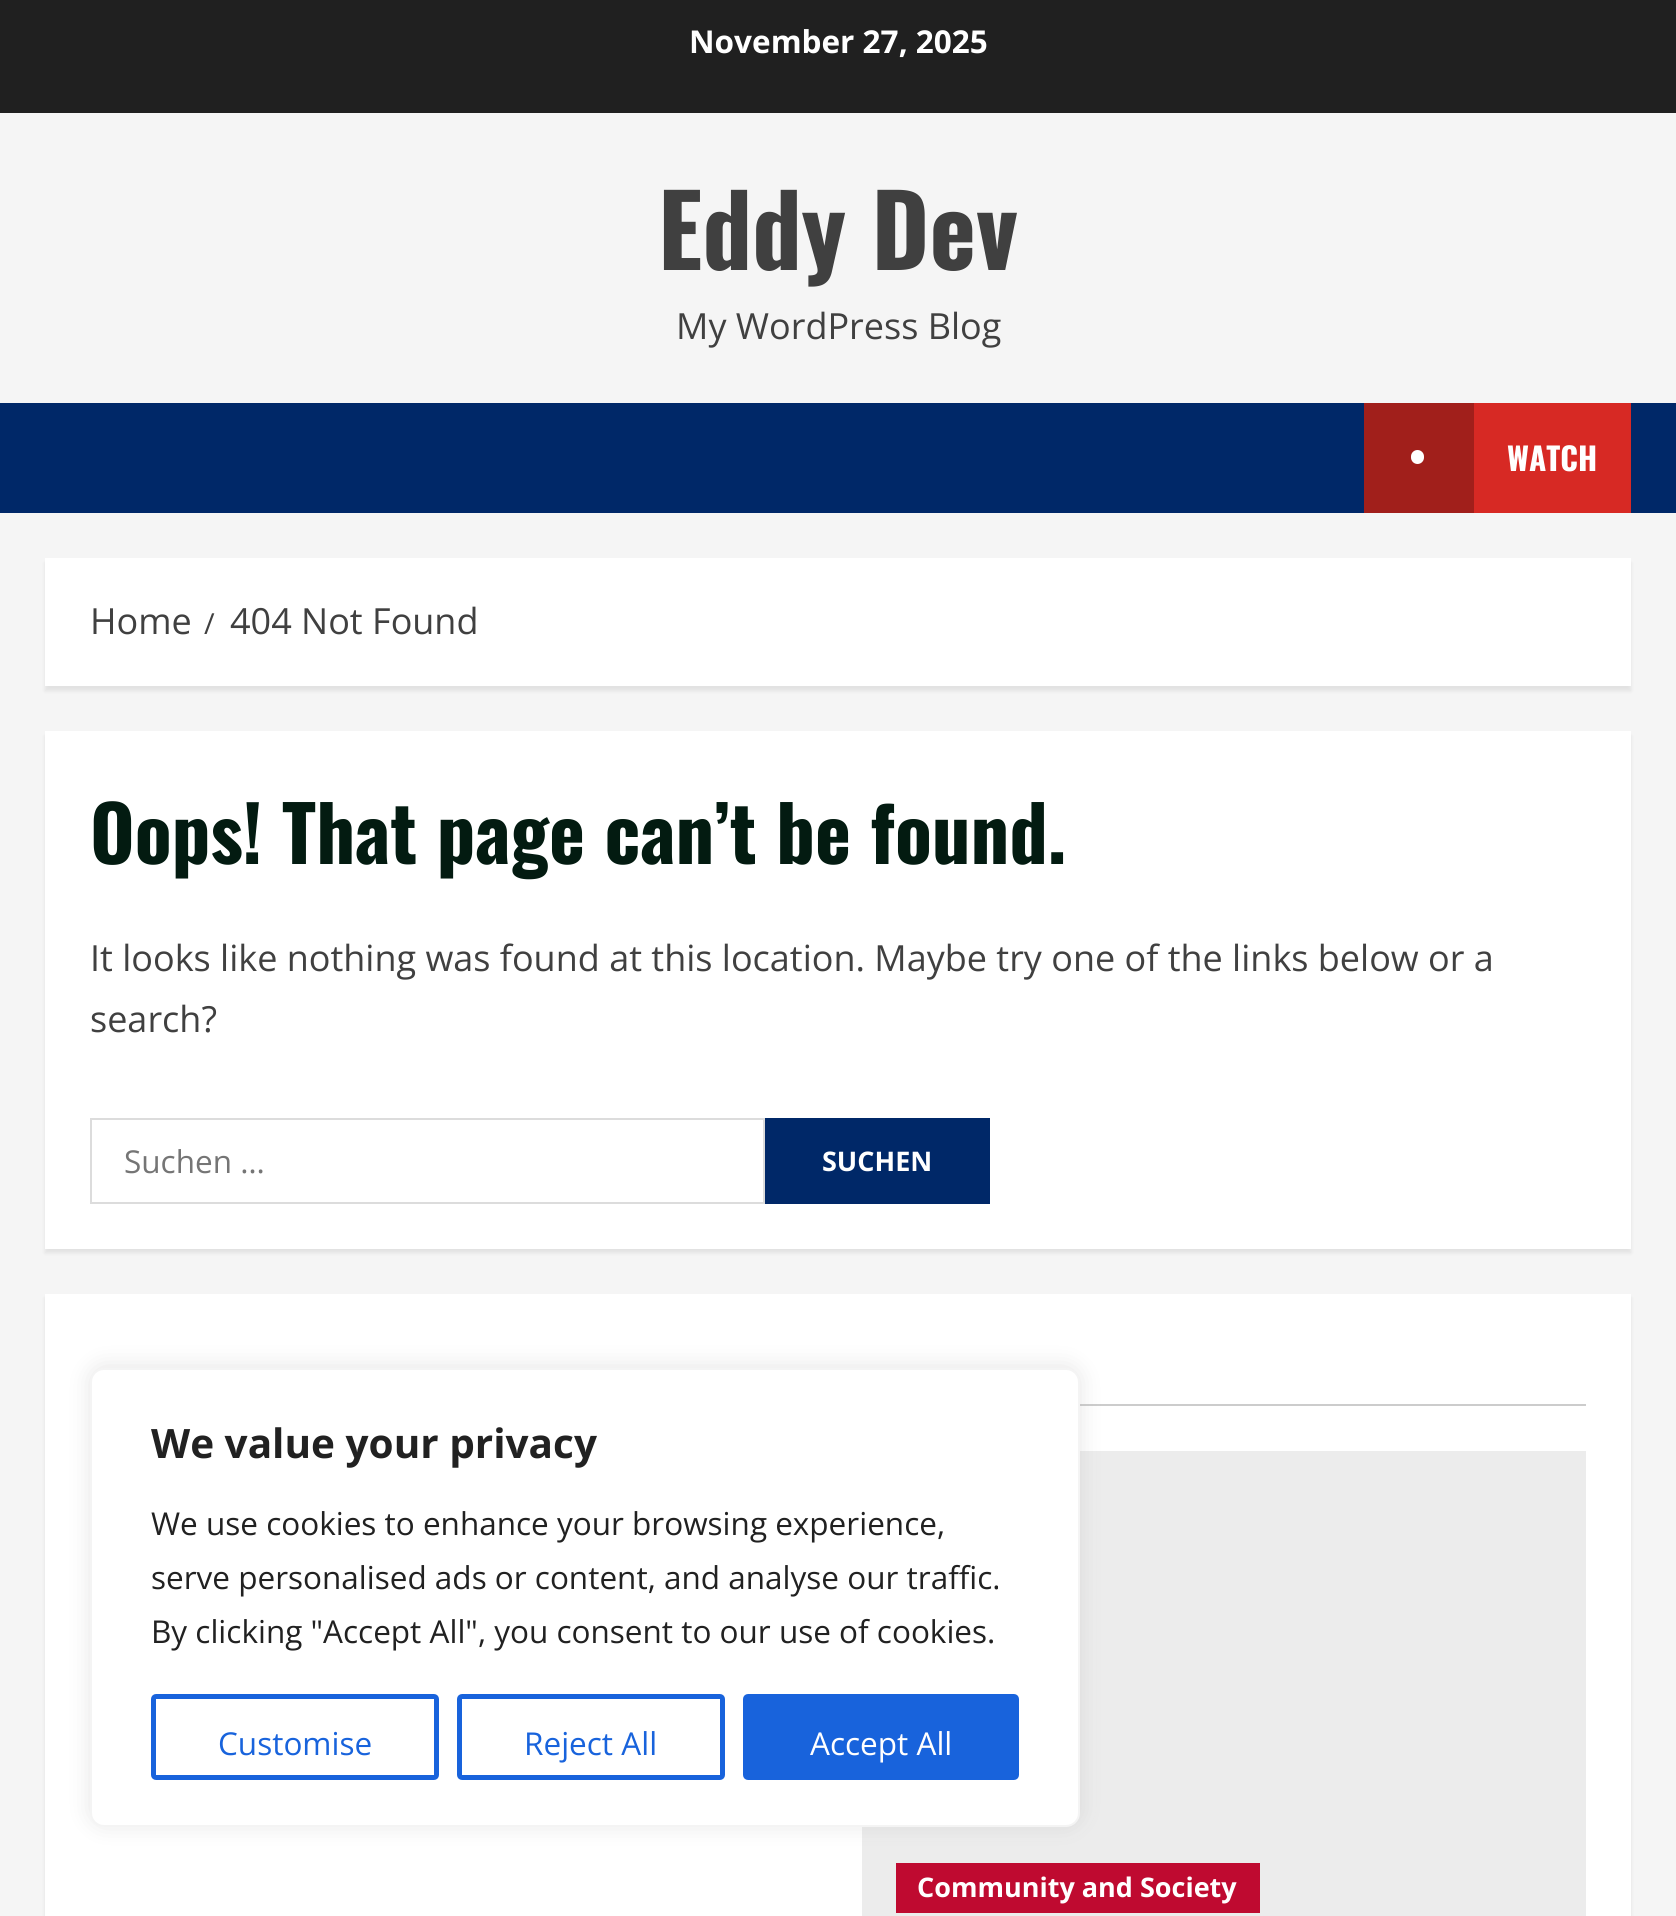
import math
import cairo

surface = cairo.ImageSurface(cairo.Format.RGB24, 1676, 1916)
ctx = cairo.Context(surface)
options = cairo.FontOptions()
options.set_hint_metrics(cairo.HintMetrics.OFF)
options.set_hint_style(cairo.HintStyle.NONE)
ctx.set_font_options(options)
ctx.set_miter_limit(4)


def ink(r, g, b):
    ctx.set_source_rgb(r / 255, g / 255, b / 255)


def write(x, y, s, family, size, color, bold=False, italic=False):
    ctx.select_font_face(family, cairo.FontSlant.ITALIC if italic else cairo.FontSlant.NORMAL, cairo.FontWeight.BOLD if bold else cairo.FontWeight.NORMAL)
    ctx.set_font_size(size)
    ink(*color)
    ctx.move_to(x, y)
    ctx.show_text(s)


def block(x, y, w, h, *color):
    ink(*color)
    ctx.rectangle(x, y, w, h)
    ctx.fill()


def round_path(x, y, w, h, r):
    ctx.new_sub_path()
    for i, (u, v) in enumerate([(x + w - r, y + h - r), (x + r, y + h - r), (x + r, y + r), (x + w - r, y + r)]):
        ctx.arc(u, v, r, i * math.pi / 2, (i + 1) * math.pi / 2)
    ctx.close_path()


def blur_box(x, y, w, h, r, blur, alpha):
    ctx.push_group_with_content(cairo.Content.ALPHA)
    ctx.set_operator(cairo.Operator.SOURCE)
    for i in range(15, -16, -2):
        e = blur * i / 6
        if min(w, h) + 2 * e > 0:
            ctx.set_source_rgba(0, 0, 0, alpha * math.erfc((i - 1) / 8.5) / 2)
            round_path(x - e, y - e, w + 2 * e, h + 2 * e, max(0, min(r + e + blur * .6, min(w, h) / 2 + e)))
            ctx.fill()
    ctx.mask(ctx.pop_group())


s1 = dict(family="Open Sans", size=31.5, color=(255, 255, 255), bold=True)
s2 = dict(family="Oswald", size=99, color=(64, 64, 64), bold=True)
s3 = dict(family="Open Sans", size=36, color=(64, 64, 64))
s4 = dict(family="Oswald", size=31.5, color=(255, 255, 255), bold=True)
s5 = dict(family="Open Sans", size=29, color=(64, 64, 64))
s6 = dict(family="Oswald", size=76.5, color=(3, 27, 17), bold=True)
s7 = dict(family="Open Sans", size=31.5, color=(117, 117, 117))
s8 = dict(family="Open Sans", size=27, color=(255, 255, 255), bold=True)
s9 = dict(family="Open Sans", size=40.5, color=(33, 33, 33), bold=True)
s10 = dict(family="Open Sans", size=31.5, color=(33, 33, 33))
s11 = dict(family="Open Sans", size=31.5, color=(24, 99, 220))
s12 = dict(family="Open Sans", size=31.5, color=(255, 255, 255))

ink(245, 245, 245)
ctx.paint()
block(0, 0, 1676, 113, 32, 32, 32)
write(689, 53, "November 27, 2025", **s1)
write(658, 270, "Eddy Dev", **s2)
write(676, 339, "My WordPress Blog", **s3)
block(0, 403, 1676, 110, 0, 40, 104)
block(1474, 403, 157, 110, 215, 41, 36)
block(1364, 403, 110, 110, 161, 31, 27)
ink(255, 255, 255)
round_path(1411, 450, 13, 14, 6.5)
ctx.fill()
write(1507, 471, "WATCH", **s4)
ink(0, 0, 0)
blur_box(45, 563, 1586, 128, 0, 2, 0.08)
block(45, 558, 1586, 128, 255, 255, 255)
write(90, 634, "Home", **s3)
write(204, 634, "/", **s5)
write(230, 634, "404 Not Found", **s3)
ink(0, 0, 0)
blur_box(45, 736, 1586, 517, 0, 2, 0.08)
block(45, 731, 1586, 518, 255, 255, 255)
write(90, 864, "Oops! That page can’t be found.", **s6)
write(90, 971, "It looks like nothing was found at this location. Maybe try one of the links below or a", **s3)
write(90, 1032, "search?", **s3)
ctx.rectangle(91, 1119, 673, 84)
ink(220, 220, 220)
ctx.stroke()
write(124, 1173, "Suchen …", **s7)
block(765, 1118, 225, 86, 0, 40, 104)
write(822, 1171, "SUCHEN", **s8)
ink(0, 0, 0)
blur_box(45, 1298, 1586, 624, 0, 2, 0.08)
block(45, 1294, 1586, 622, 255, 255, 255)
block(1080, 1404, 506, 2, 204, 204, 204)
block(862, 1451, 724, 465, 236, 236, 236)
block(896, 1863, 364, 50, 191, 10, 48)
write(917, 1897, "Community and Society", **s8)
ink(172, 171, 171)
blur_box(90, 1366, 990, 459, 14, 11, 0.3)
ink(255, 255, 255)
round_path(91, 1369, 988, 457, 13)
ctx.fill_preserve()
ink(244, 244, 244)
ctx.stroke()
write(151, 1458, "We value your privacy", **s9)
write(151, 1535, "We use cookies to enhance your browsing experience,", **s10)
write(151, 1589, "serve personalised ads or content, and analyse our traffic.", **s10)
write(151, 1643, "By clicking \"Accept All\", you consent to our use of cookies.", **s10)
round_path(153.5, 1696.5, 283, 81, 2.5)
ink(24, 99, 220)
ctx.set_line_width(5)
ctx.stroke()
write(218, 1755, "Customise", **s11)
round_path(459.5, 1696.5, 263, 81, 2.5)
ctx.stroke()
write(524, 1755, "Reject All", **s11)
round_path(745.5, 1696.5, 271, 81, 2.5)
ctx.fill_preserve()
ctx.stroke()
write(810, 1755, "Accept All", **s12)
surface.write_to_png("screenshot.png")
